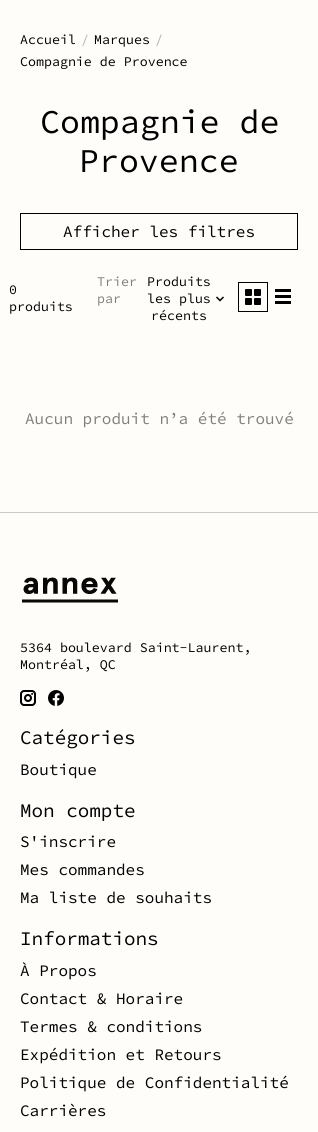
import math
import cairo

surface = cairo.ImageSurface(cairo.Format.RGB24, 318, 1132)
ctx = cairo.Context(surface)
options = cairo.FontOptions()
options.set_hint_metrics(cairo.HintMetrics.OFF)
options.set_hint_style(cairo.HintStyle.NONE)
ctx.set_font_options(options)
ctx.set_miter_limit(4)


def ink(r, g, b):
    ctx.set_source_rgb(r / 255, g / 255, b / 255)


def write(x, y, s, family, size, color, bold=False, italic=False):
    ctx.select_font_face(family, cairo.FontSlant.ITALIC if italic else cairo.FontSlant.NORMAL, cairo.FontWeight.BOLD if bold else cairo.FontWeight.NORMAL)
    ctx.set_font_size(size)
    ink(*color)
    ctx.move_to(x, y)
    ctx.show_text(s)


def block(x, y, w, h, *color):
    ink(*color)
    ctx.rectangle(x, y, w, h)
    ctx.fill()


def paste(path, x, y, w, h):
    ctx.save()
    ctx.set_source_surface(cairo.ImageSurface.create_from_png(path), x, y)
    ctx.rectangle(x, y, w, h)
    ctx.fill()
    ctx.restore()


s1 = dict(family="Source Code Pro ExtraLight", size=13.3, color=(0, 0, 0))
s2 = dict(family="Source Code Pro ExtraLight", size=13.3, color=(179, 177, 175))
s3 = dict(family="Source Code Pro ExtraLight", size=33.25, color=(0, 0, 0))
s4 = dict(family="Source Code Pro ExtraLight", size=16, color=(0, 0, 0))
s5 = dict(family="Source Code Pro ExtraLight", size=13.3, color=(128, 127, 125))
s6 = dict(family="Source Code Pro ExtraLight", size=16, color=(128, 127, 125))
s7 = dict(family="Source Code Pro ExtraLight", size=19.25, color=(0, 0, 0))

ink(255, 253, 250)
ctx.paint()
write(20, 44, "Accueil", **s1)
write(81, 44, "/", **s2)
write(94, 44, "Marques", **s1)
write(155, 44, "/", **s2)
write(20, 66, "Compagnie de Provence", **s1)
write(40, 133, "Compagnie de", **s3)
write(79, 172, "Provence", **s3)
ctx.rectangle(20.5, 213.5, 277, 36)
ctx.set_line_width(1)
ctx.stroke()
write(63, 237, "Afficher les filtres", **s4)
write(9, 294, "0", **s1)
write(9, 311, "produits", **s1)
write(97, 286, "Trier", **s5)
write(97, 303, "par", **s5)
write(147, 286, "Produits", **s1)
write(147, 303, "les plus", **s1)
write(151, 320, "récents", **s1)
paste("pic1.png", 216, 296, 8, 6)
ctx.rectangle(238.5, 282.5, 29, 29)
ctx.stroke()
paste("pic2.png", 245, 289, 16, 16)
block(275, 289, 16, 3, 0, 0, 0)
block(275, 295, 16, 3, 0, 0, 0)
block(275, 301, 16, 3, 0, 0, 0)
write(25, 424, "Aucun produit n’a été trouvé", **s6)
block(0, 512, 318, 1, 204, 202, 200)
paste("pic3.png", 22, 577, 96, 26)
write(20, 652, "5364 boulevard Saint-Laurent,", **s1)
write(20, 669, "Montréal, QC", **s1)
paste("pic4.png", 20, 690, 16, 16)
paste("pic5.png", 48, 690, 16, 16)
write(20, 744, "Catégories", **s7)
write(20, 775, "Boutique", **s4)
write(20, 817, "Mon compte", **s7)
write(20, 847, "S'inscrire", **s4)
write(20, 875, "Mes commandes", **s4)
write(20, 903, "Ma liste de souhaits", **s4)
write(20, 945, "Informations", **s7)
write(20, 976, "À Propos", **s4)
write(20, 1004, "Contact & Horaire", **s4)
write(20, 1032, "Termes & conditions", **s4)
write(20, 1060, "Expédition et Retours", **s4)
write(20, 1088, "Politique de Confidentialité", **s4)
write(20, 1116, "Carrières", **s4)
surface.write_to_png("screenshot.png")
